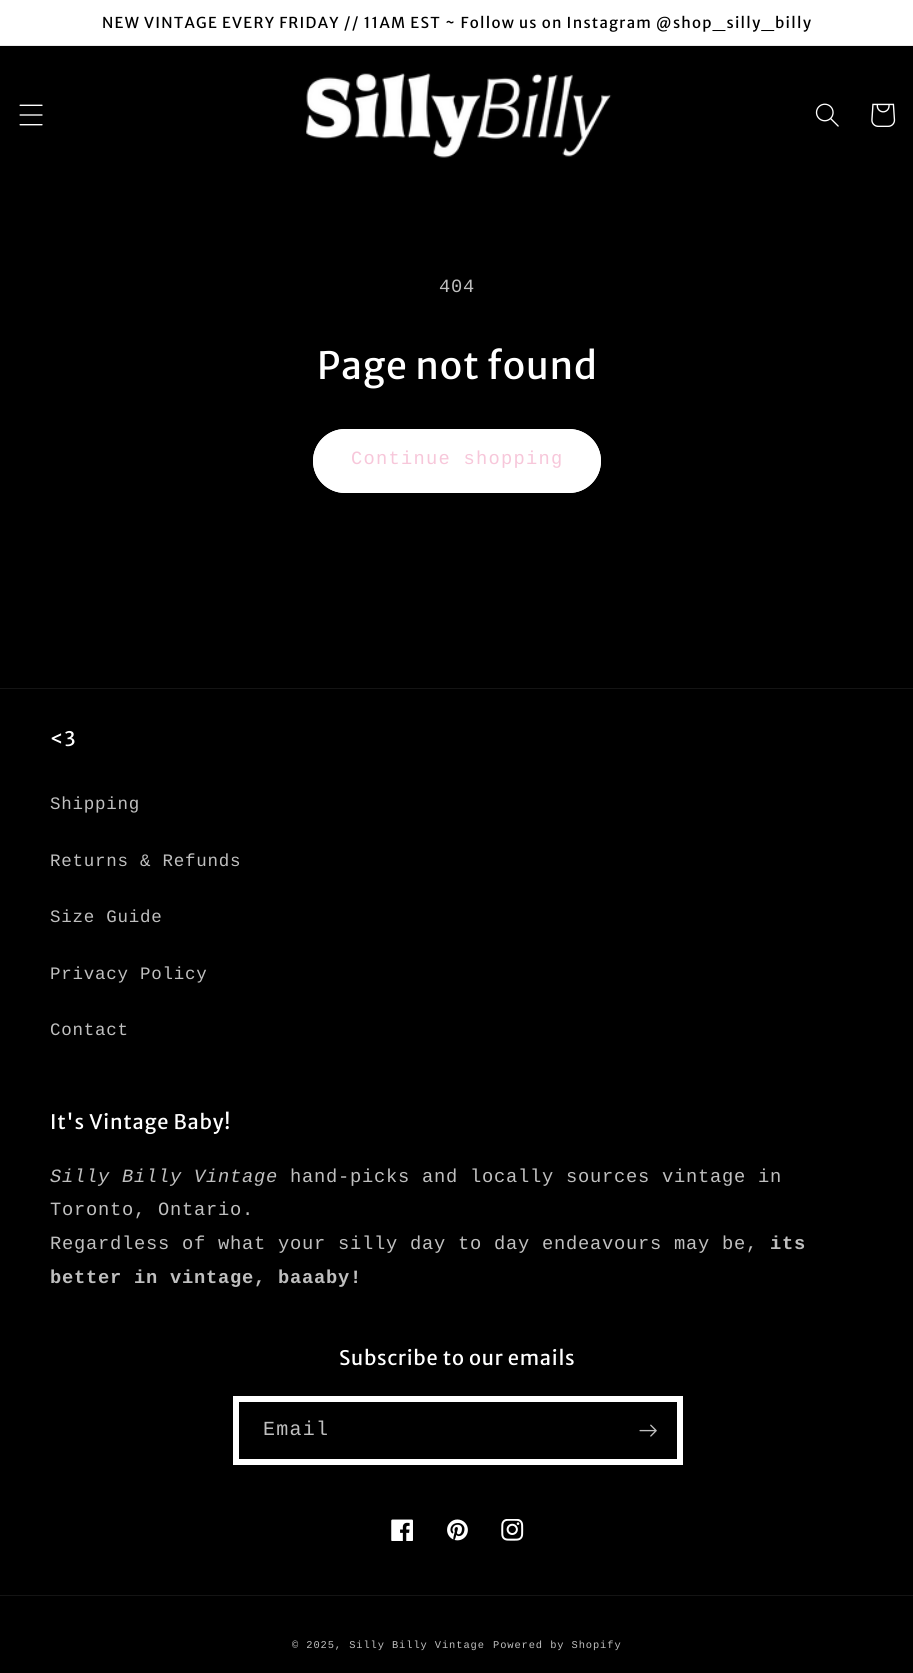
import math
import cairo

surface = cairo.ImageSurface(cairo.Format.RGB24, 913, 1673)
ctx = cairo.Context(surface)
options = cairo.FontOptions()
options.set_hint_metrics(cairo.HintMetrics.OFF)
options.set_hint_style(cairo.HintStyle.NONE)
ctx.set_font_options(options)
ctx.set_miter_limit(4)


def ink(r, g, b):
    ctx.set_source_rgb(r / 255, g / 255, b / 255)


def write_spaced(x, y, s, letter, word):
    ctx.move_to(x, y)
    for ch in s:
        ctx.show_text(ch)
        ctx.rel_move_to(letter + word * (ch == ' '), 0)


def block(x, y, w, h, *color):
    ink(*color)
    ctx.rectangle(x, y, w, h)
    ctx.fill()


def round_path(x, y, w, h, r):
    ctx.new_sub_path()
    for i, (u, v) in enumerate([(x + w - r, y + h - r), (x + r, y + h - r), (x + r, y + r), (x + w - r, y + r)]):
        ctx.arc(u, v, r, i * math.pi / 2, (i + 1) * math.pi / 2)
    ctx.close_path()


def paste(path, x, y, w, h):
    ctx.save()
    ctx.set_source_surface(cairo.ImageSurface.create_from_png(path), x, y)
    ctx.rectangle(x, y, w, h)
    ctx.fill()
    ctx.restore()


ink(0, 0, 0)
ctx.paint()
block(0, 0, 913, 45, 255, 255, 255)
block(0, 45, 913, 1, 235, 235, 235)
ctx.select_font_face("Merriweather Sans")
ctx.set_font_size(15)
ink(0, 0, 0)
write_spaced(102, 28, "NEW VINTAGE EVERY FRIDAY // 11AM EST ~ Follow us on Instagram @shop_silly_billy", 1.25, 0)
paste("pic1.png", 19, 104, 24, 22)
paste("pic2.png", 306, 73, 306, 85)
paste("pic3.png", 815, 103, 24, 24)
paste("pic4.png", 871, 103, 25, 24)
ctx.select_font_face("Liberation Mono")
ctx.set_font_size(18.75)
ink(191, 191, 191)
write_spaced(439, 292, "404", 0.75, 0)
ctx.select_font_face("Merriweather Sans")
ctx.set_font_size(37.5)
ink(255, 255, 255)
write_spaced(317, 379, "Page not found", 0.75, 0)
round_path(313, 429, 288, 64, 32)
ctx.fill()
round_path(315, 431, 284, 60, 30)
ctx.set_line_width(4)
ctx.stroke()
ctx.select_font_face("Liberation Mono")
ctx.set_font_size(18.75)
ink(247, 199, 218)
write_spaced(351, 464, "Continue shopping", 1.25, 0)
block(0, 688, 913, 1, 20, 20, 20)
ctx.select_font_face("Merriweather Sans")
ctx.set_font_size(20)
ink(255, 255, 255)
write_spaced(50, 746, "<3", 0.75, 0)
ctx.select_font_face("Liberation Mono")
ctx.set_font_size(17.5)
ink(191, 191, 191)
write_spaced(50, 809, "Shipping", 0.75, 0)
write_spaced(50, 866, "Returns & Refunds", 0.75, 0)
write_spaced(50, 922, "Size Guide", 0.75, 0)
write_spaced(50, 979, "Privacy Policy", 0.75, 0)
write_spaced(50, 1035, "Contact", 0.75, 0)
ctx.select_font_face("Merriweather Sans")
ctx.set_font_size(20)
ink(255, 255, 255)
write_spaced(50, 1129, "It's Vintage Baby!", 0.75, 0)
ctx.select_font_face("Liberation Mono", cairo.FontSlant.ITALIC)
ctx.set_font_size(18.75)
ink(191, 191, 191)
write_spaced(50, 1182, "Silly Billy Vintage", 0.75, 0)
ctx.select_font_face("Liberation Mono")
write_spaced(290, 1182, "hand-picks and locally sources vintage in", 0.75, 0)
write_spaced(50, 1215, "Toronto, Ontario.", 0.75, 0)
write_spaced(50, 1249, "Regardless of what your silly day to day endeavours may be,", 0.75, 0)
ctx.select_font_face("Liberation Mono", cairo.FontSlant.NORMAL, cairo.FontWeight.BOLD)
write_spaced(770, 1249, "its", 0.75, 0)
write_spaced(50, 1283, "better in vintage, baaaby!", 0.75, 0)
ctx.select_font_face("Merriweather Sans")
ctx.set_font_size(20)
ink(255, 255, 255)
write_spaced(339, 1365, "Subscribe to our emails", 0.75, 0)
ctx.rectangle(236, 1399, 444, 63)
ctx.set_line_width(6)
ctx.stroke()
ctx.select_font_face("Liberation Mono")
ink(191, 191, 191)
write_spaced(263, 1435, "Email", 1.25, 0)
paste("pic5.png", 639, 1424, 18, 13)
paste("pic6.png", 391, 1519, 22, 22)
paste("pic7.png", 447, 1519, 21, 22)
paste("pic8.png", 501, 1519, 23, 22)
block(0, 1595, 913, 1, 20, 20, 20)
ctx.set_font_size(10.4)
ink(191, 191, 191)
write_spaced(292, 1648, "© 2025, Silly Billy Vintage", 0.9, 0)
write_spaced(493, 1648, "Powered by Shopify", 0.9, 0)
surface.write_to_png("screenshot.png")
